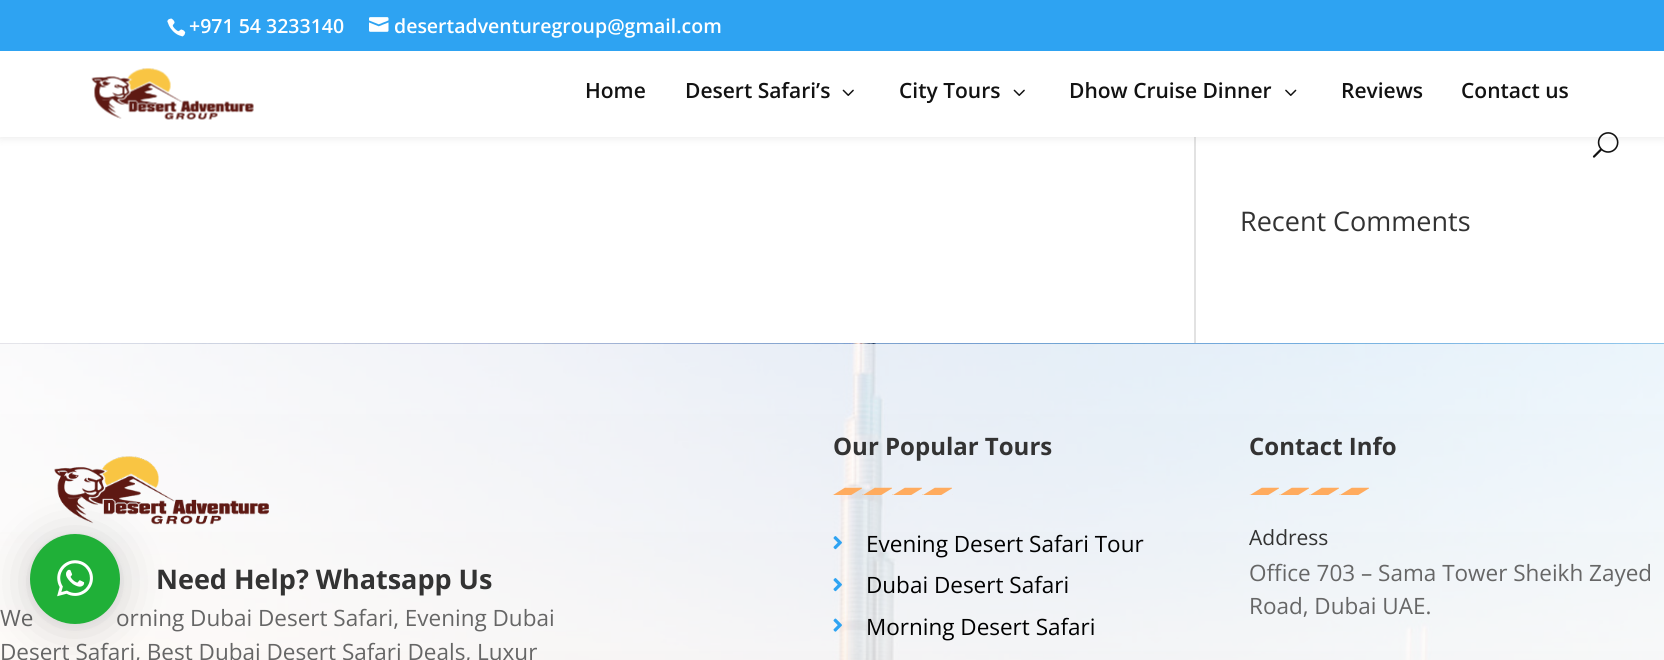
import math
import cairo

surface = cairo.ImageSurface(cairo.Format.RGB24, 1664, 660)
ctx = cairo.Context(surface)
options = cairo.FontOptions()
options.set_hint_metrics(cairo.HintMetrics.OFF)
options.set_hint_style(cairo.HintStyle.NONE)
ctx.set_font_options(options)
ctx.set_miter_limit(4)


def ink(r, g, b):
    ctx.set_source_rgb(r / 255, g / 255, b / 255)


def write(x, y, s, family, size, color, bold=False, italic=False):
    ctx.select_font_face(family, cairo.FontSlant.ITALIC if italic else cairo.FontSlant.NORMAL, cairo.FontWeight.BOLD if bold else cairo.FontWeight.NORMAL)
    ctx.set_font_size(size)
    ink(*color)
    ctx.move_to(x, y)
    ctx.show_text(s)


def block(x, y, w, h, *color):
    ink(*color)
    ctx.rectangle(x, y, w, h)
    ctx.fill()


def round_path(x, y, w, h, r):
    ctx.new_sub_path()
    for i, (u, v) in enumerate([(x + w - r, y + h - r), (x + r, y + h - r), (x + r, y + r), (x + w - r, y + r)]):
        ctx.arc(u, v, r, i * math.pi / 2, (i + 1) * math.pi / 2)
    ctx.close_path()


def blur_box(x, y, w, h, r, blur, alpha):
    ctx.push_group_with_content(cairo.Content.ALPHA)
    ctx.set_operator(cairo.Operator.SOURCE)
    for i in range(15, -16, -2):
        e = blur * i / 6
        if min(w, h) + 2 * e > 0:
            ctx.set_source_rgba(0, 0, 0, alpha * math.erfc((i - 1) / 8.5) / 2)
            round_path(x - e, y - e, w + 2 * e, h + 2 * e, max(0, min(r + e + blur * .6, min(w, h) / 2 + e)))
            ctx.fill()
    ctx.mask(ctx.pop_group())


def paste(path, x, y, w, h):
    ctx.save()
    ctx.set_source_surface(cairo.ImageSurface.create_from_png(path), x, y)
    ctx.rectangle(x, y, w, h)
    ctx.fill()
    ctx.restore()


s1 = dict(family="Open Sans SemiBold", size=19.5, color=(255, 255, 255))
s2 = dict(family="Open Sans SemiBold", size=21, color=(18, 18, 18))
s3 = dict(family="Open Sans", size=27, color=(51, 51, 51))
s4 = dict(family="Open Sans", size=24, color=(51, 51, 51), bold=True)
s5 = dict(family="Open Sans", size=22.5, color=(0, 0, 0))
s6 = dict(family="Open Sans", size=21, color=(51, 51, 51))
s7 = dict(family="Open Sans", size=22.5, color=(102, 102, 102))
s8 = dict(family="Open Sans", size=27, color=(51, 51, 51), bold=True)

ink(255, 255, 255)
ctx.paint()
block(1194, 137, 2, 207, 226, 226, 226)
ink(0, 0, 0)
blur_box(0, 51, 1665, 86, 0, 5, 0.1)
block(0, 0, 1664, 51, 46, 163, 242)
paste("pic1.png", 167, 18, 19, 19)
write(189, 33, "+971 54 3233140", **s1)
paste("pic2.png", 369, 17, 20, 15)
write(394, 33, "desertadventuregroup@gmail.com", **s1)
block(0, 51, 1664, 86, 255, 255, 255)
paste("pic3.png", 91, 68, 163, 52)
write(585, 98, "Home", **s2)
write(685, 98, "Desert Safari’s", **s2)
paste("pic4.png", 842, 89, 12, 7)
write(899, 98, "City Tours", **s2)
paste("pic4.png", 1013, 89, 12, 7)
write(1069, 98, "Dhow Cruise Dinner", **s2)
paste("pic5.png", 1285, 89, 12, 7)
write(1341, 98, "Reviews", **s2)
write(1461, 98, "Contact us", **s2)
paste("pic6.png", 1592, 132, 27, 26)
write(1240, 231, "Recent Comments", **s3)
paste("pic7.png", 0, 343, 1664, 317)
write(833, 455, "Our Popular Tours", **s4)
paste("pic8.png", 832, 487, 121, 8)
paste("pic9.png", 833, 536, 9, 14)
write(866, 552, "Evening Desert Safari Tour", **s5)
paste("pic10.png", 833, 578, 9, 14)
write(866, 593, "Dubai Desert Safari", **s5)
paste("pic11.png", 833, 618, 9, 14)
write(866, 635, "Morning Desert Safari", **s5)
write(1249, 455, "Contact Info", **s4)
paste("pic12.png", 1249, 487, 121, 8)
write(1249, 545, "Address", **s6)
write(1249, 581, "Office 703 – Sama Tower Sheikh Zayed", **s7)
write(1249, 614, "Road, Dubai UAE.", **s7)
paste("pic13.png", 54, 456, 215, 69)
write(0, 626, "We", **s7)
write(116, 626, "orning Dubai Desert Safari, Evening Dubai", **s7)
write(0, 660, "Desert Safari, Best Dubai Desert Safari Deals, Luxur", **s7)
ink(0, 0, 0)
blur_box(30, 537, 90, 90, 45, 24, 0.16)
blur_box(30, 536, 90, 90, 45, 4.5, 0.06)
ink(32, 176, 56)
ctx.arc(75, 579, 45, 0, 2 * math.pi)
ctx.fill()
paste("pic14.png", 57, 560, 36, 37)
write(156, 589, "Need Help? Whatsapp Us", **s8)
surface.write_to_png("screenshot.png")
